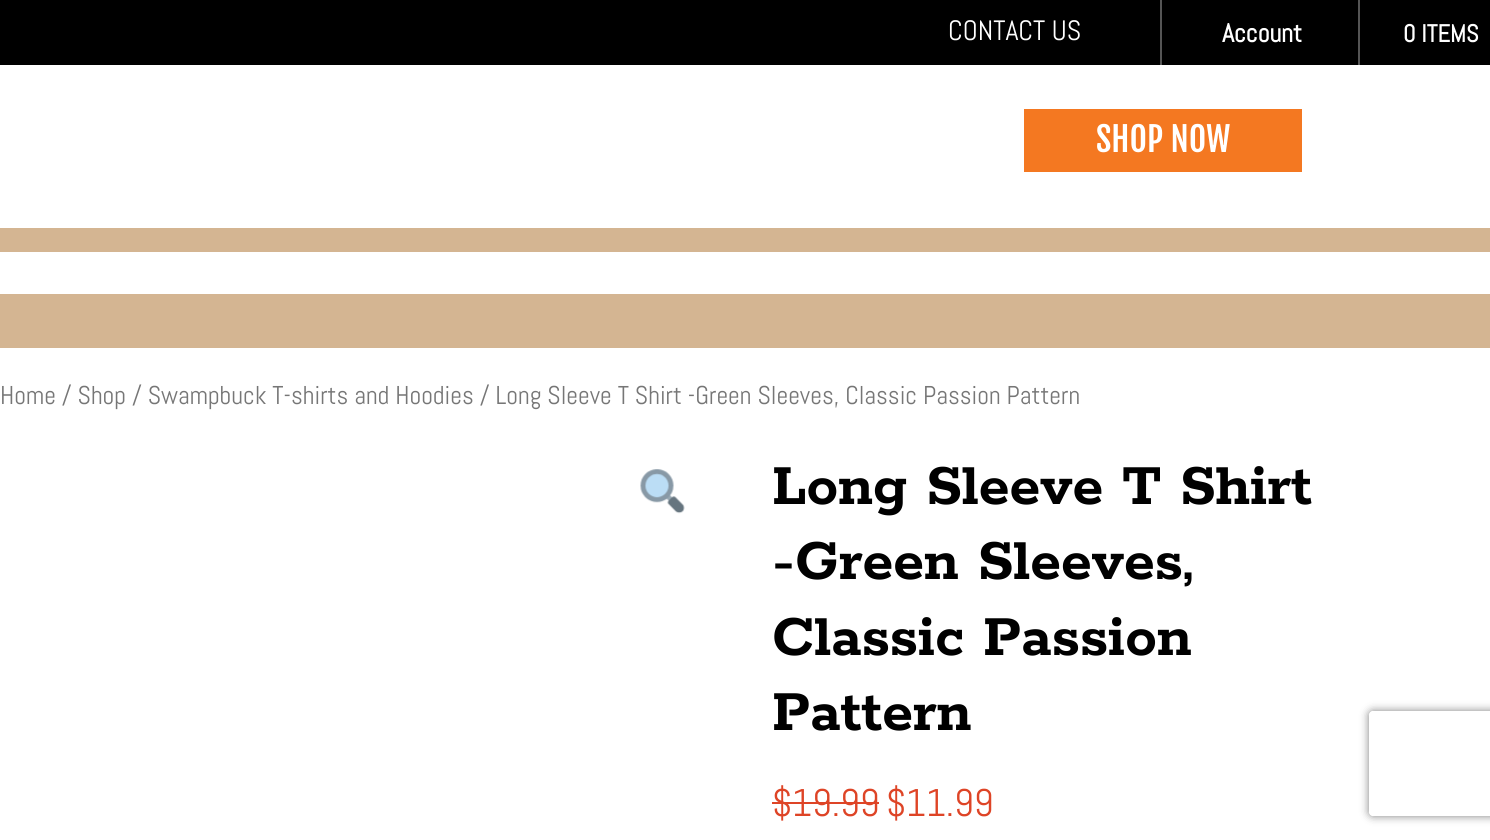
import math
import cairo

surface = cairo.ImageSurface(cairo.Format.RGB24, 1490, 840)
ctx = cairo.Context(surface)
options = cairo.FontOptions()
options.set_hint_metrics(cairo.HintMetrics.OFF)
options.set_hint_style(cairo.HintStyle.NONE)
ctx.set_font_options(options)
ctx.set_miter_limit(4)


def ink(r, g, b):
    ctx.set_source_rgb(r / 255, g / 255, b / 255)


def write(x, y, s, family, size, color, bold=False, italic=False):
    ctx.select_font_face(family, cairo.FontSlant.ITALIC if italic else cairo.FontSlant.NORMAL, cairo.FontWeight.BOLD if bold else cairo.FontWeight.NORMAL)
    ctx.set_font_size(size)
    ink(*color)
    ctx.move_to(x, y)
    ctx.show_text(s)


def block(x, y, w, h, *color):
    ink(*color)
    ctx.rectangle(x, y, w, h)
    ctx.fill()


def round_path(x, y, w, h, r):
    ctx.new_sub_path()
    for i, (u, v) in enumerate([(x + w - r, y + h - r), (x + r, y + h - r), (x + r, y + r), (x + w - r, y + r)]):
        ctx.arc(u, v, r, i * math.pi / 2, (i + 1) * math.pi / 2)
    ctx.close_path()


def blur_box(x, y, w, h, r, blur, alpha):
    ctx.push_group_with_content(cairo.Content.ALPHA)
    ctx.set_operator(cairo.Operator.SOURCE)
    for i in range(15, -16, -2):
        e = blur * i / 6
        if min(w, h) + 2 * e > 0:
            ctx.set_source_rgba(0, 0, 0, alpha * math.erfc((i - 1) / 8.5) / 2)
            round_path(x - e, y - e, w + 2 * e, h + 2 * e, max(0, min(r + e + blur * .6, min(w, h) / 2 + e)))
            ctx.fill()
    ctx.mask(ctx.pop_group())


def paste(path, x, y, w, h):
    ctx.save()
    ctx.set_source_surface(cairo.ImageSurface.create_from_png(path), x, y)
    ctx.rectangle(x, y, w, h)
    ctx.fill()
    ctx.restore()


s1 = dict(family="Abel", size=28, color=(255, 255, 255))
s2 = dict(family="Abel", size=26, color=(255, 255, 255), bold=True)
s3 = dict(family="Abel", size=24.5, color=(255, 255, 255), bold=True)
s4 = dict(family="Fjalla One", size=33.5, color=(255, 255, 255))
s5 = dict(family="Abel", size=25.75, color=(118, 118, 118))
s6 = dict(family="Rokkitt", size=63, color=(0, 0, 0), bold=True)
s7 = dict(family="Abel", size=38.5, color=(222, 68, 38))

ink(255, 255, 255)
ctx.paint()
block(0, 0, 1490, 65, 0, 0, 0)
write(948, 40, "CONTACT US", **s1)
block(1358, 0, 2, 65, 85, 85, 85)
block(1160, 0, 2, 65, 85, 85, 85)
write(1222, 42, "Account", **s2)
write(1403, 42, "0 ITEMS", **s3)
block(1024, 109, 278, 63, 244, 120, 33)
write(1096, 152, "SHOP NOW", **s4)
block(0, 228, 1490, 24, 212, 181, 146)
block(0, 294, 1490, 54, 212, 181, 146)
write(0, 404, "Home / Shop / Swampbuck T-shirts and Hoodies / Long Sleeve T Shirt -Green Sleeves, Classic Passion Pattern", **s5)
paste("pic1.png", 640, 469, 45, 45)
write(772, 504, "Long Sleeve T Shirt", **s6)
write(772, 579, "-Green Sleeves,", **s6)
write(772, 655, "Classic Passion", **s6)
write(772, 730, "Pattern", **s6)
write(772, 816, "$19.99", **s7)
block(772, 802, 107, 2, 222, 68, 38)
write(886, 816, "$11.99", **s7)
ctx.save()
ctx.set_fill_rule(cairo.FillRule.EVEN_ODD)
ctx.new_path()
ctx.move_to(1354, 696)
ctx.line_to(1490, 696)
ctx.line_to(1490, 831)
ctx.line_to(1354, 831)
ctx.close_path()
ctx.move_to(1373, 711)
ctx.line_to(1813, 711)
ctx.curve_to(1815, 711, 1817, 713, 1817, 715)
ctx.line_to(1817, 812)
ctx.curve_to(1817, 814, 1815, 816, 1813, 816)
ctx.line_to(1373, 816)
ctx.curve_to(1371, 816, 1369, 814, 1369, 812)
ctx.line_to(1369, 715)
ctx.curve_to(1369, 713, 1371, 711, 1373, 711)
ctx.close_path()
ctx.clip()
ink(128, 128, 128)
blur_box(1369, 711, 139, 105, 4, 4.5, 1)
ctx.restore()
surface.write_to_png("screenshot.png")
